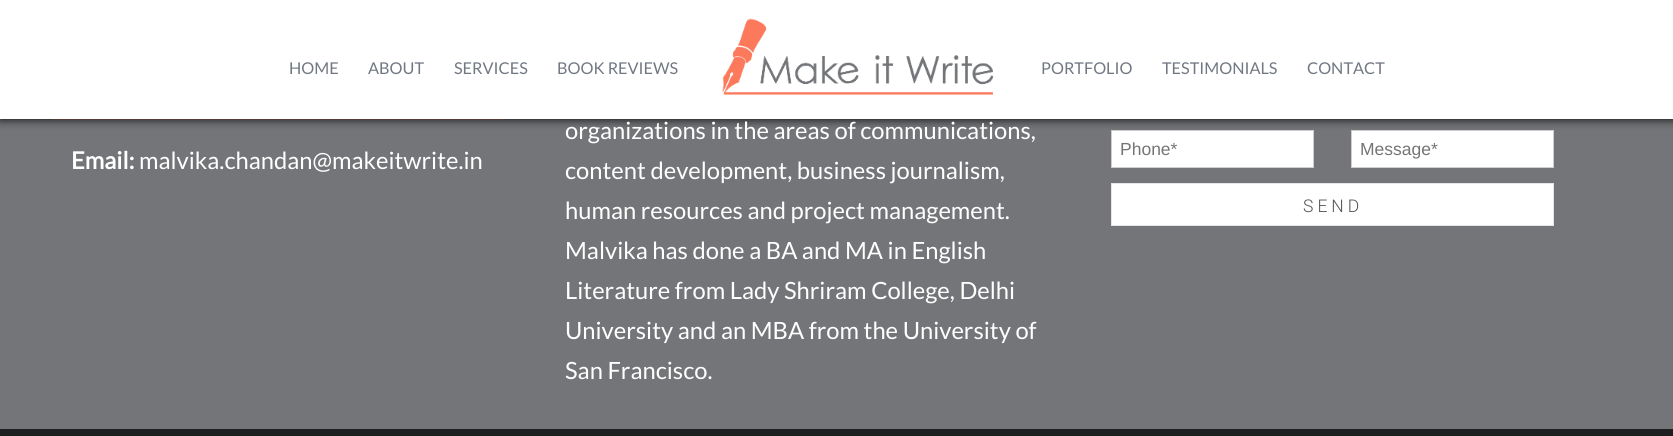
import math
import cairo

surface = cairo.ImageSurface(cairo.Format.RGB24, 1673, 436)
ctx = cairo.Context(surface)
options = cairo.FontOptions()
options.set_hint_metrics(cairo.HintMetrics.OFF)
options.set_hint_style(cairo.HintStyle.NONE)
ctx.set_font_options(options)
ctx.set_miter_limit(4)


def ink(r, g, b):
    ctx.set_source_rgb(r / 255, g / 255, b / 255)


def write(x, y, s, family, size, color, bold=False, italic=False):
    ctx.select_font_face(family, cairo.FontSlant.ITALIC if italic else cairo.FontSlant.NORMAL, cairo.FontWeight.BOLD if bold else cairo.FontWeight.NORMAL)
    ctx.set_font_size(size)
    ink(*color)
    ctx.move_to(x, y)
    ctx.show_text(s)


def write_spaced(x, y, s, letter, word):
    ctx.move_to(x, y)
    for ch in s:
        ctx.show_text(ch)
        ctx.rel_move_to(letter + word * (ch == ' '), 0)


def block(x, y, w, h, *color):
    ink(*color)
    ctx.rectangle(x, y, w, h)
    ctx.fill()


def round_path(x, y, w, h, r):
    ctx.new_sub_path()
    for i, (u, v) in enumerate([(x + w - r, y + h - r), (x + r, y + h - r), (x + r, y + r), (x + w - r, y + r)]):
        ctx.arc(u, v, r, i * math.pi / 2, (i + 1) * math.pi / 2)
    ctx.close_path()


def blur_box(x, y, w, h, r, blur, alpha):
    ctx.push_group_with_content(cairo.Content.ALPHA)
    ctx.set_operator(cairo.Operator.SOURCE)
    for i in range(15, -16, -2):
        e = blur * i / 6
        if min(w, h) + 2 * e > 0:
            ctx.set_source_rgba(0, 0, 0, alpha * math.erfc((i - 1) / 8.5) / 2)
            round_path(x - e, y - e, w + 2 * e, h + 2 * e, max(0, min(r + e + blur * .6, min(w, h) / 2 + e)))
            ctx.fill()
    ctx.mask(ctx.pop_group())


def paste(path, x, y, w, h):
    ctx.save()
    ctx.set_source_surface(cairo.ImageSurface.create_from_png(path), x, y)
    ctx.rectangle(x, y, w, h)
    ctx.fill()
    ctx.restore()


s1 = dict(family="Lato", size=16.25, color=(114, 120, 130))
s2 = dict(family="Lato", size=23.75, color=(255, 255, 255), bold=True)
s3 = dict(family="Lato", size=23.75, color=(255, 255, 255))
s4 = dict(family="Liberation Sans", size=17.5, color=(117, 117, 117))

ink(115, 117, 120)
ctx.paint()
paste("pic2.png", 53, 119, 452, 1)
ink(255, 255, 255)
ctx.rectangle(1111.5, 130.5, 202, 37)
ctx.fill_preserve()
ink(207, 207, 207)
ctx.set_line_width(1)
ctx.stroke()
ink(255, 255, 255)
ctx.rectangle(1351.5, 130.5, 202, 37)
ctx.fill_preserve()
ink(207, 207, 207)
ctx.stroke()
ink(0, 0, 0)
blur_box(0, 0, 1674, 119, 0, 5, 1)
block(0, 0, 1673, 119, 255, 255, 255)
write(289, 74, "HOME", **s1)
write(368, 74, "ABOUT", **s1)
write(454, 74, "SERVICES", **s1)
write(557, 74, "BOOK REVIEWS", **s1)
paste("pic1.png", 722, 18, 272, 77)
write(1041, 74, "PORTFOLIO", **s1)
write(1162, 74, "TESTIMONIALS", **s1)
write(1307, 74, "CONTACT", **s1)
write(71, 169, "Email:", **s2)
write(139, 169, "malvika.chandan@makeitwrite.in", **s3)
write(565, 139, "organizations in the areas of communications,", **s3)
write(565, 179, "content development, business journalism,", **s3)
write(565, 219, "human resources and project management.", **s3)
write(565, 259, "Malvika has done a BA and MA in English", **s3)
write(565, 299, "Literature from Lady Shriram College, Delhi", **s3)
write(565, 339, "University and an MBA from the University of", **s3)
write(565, 379, "San Francisco.", **s3)
write(1120, 155, "Phone*", **s4)
write(1360, 155, "Message*", **s4)
ink(255, 255, 255)
ctx.rectangle(1111.5, 183.5, 442, 42)
ctx.fill_preserve()
ink(230, 230, 230)
ctx.stroke()
ctx.select_font_face("Roboto Light")
ink(85, 85, 85)
write_spaced(1303, 212, "SEND", 4, 0)
block(0, 429, 1673, 7, 29, 30, 31)
surface.write_to_png("screenshot.png")
